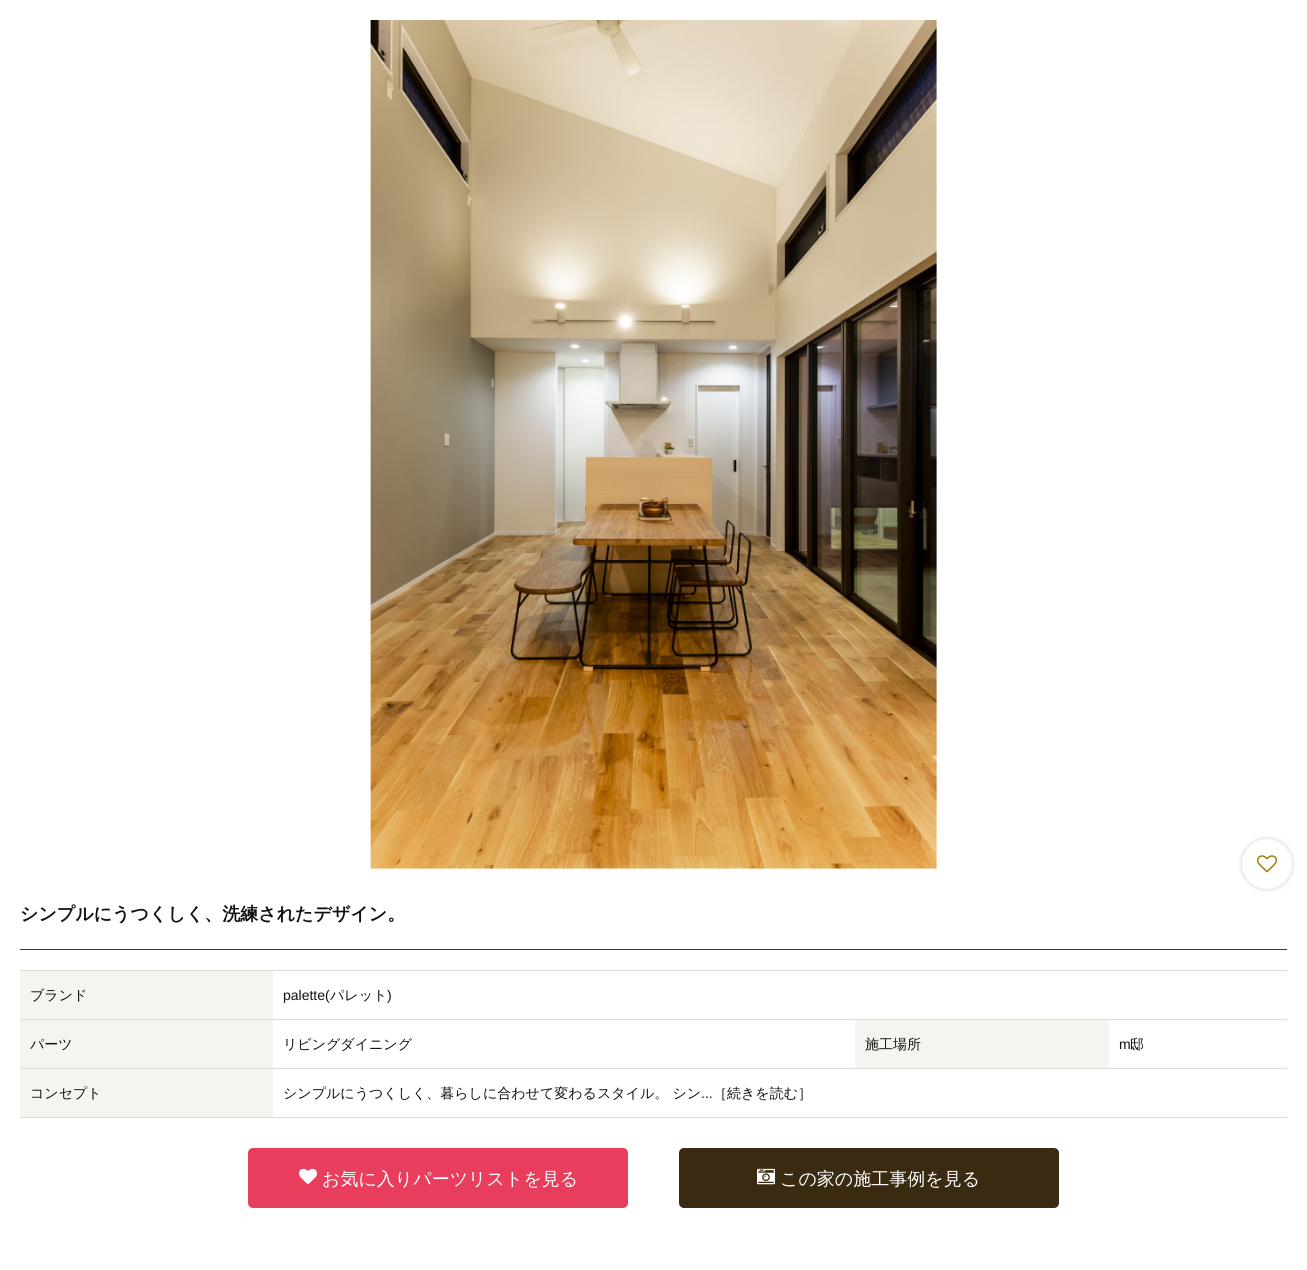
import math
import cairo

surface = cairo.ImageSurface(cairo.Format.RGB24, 1307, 1270)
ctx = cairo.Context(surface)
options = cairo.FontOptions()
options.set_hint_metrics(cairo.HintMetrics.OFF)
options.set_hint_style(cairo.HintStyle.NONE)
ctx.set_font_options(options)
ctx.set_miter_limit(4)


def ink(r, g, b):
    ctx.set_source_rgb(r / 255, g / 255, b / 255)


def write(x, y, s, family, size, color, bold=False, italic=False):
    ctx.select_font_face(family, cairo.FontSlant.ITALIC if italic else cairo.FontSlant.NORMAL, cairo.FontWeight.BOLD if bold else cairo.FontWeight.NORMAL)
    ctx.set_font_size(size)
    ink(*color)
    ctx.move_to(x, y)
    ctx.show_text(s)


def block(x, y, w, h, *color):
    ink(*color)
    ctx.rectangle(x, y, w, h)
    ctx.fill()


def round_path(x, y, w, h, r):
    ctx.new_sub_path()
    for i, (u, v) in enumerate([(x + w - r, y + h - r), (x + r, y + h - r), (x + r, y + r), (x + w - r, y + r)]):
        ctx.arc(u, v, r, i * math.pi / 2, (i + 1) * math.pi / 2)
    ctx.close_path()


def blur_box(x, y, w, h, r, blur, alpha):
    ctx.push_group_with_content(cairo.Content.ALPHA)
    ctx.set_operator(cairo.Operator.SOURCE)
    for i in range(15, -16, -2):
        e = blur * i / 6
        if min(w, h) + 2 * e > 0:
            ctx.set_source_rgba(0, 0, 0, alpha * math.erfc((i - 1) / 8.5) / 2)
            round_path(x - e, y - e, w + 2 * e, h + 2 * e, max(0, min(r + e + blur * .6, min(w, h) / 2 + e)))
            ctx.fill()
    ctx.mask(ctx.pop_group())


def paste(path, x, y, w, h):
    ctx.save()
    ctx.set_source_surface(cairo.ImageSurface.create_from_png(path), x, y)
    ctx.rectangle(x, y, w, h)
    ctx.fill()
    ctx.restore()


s1 = dict(family="WenQuanYi Zen Hei", size=18, color=(17, 17, 17), bold=True)
s2 = dict(family="WenQuanYi Zen Hei Medium", size=14, color=(17, 17, 17))
s3 = dict(family="Liberation Sans", size=14, color=(17, 17, 17))
s4 = dict(family="WenQuanYi Zen Hei Medium", size=18, color=(255, 255, 255))

ink(255, 255, 255)
ctx.paint()
paste("pic1.png", 370, 20, 567, 849)
ink(0, 0, 0)
blur_box(1242, 839, 50, 50, 25, 2.5, 0.1)
blur_box(1242, 839, 50, 50, 25, 2.5, 0.1)
ink(255, 255, 255)
ctx.arc(1267, 864, 25, 0, 2 * math.pi)
ctx.fill()
paste("pic2.png", 1257, 855, 20, 18)
block(20, 949, 1267, 1, 63, 59, 58)
write(20, 920, "シンプルにうつくしく、洗練されたデザイン。", **s1)
block(20, 970, 1267, 1, 221, 220, 217)
block(20, 971, 253, 48, 246, 244, 239)
block(20, 1019, 1267, 1, 221, 220, 217)
write(30, 1000, "ブランド", **s2)
write(283, 1000, "palette(", **s3)
write(330, 1000, "パレット", **s2)
write(387, 1000, ")", **s3)
block(20, 1020, 253, 48, 246, 244, 239)
block(20, 1068, 1267, 1, 221, 220, 217)
write(30, 1049, "パーツ", **s2)
write(283, 1049, "リビングダイニング", **s2)
block(855, 1020, 254, 48, 246, 244, 239)
write(865, 1049, "施工場所", **s2)
write(1119, 1049, "m", **s3)
write(1130, 1049, "邸", **s2)
block(20, 1069, 253, 48, 246, 244, 239)
block(20, 1117, 1267, 1, 221, 220, 217)
write(30, 1098, "コンセプト", **s2)
write(283, 1098, "シンプルにうつくしく、暮らしに合わせて変わるスタイル。 シン", **s2)
write(701, 1098, "...", **s3)
write(713, 1098, "［続きを読む］", **s2)
ink(232, 61, 92)
round_path(248, 1148, 380, 60, 5)
ctx.fill()
paste("pic3.png", 299, 1168, 18, 17)
write(322, 1185, "お気に入りパーツリストを見る", **s4)
ink(58, 42, 17)
round_path(679, 1148, 380, 60, 5)
ctx.fill()
paste("pic4.png", 757, 1168, 18, 17)
write(780, 1185, "この家の施工事例を見る", **s4)
surface.write_to_png("screenshot.png")
